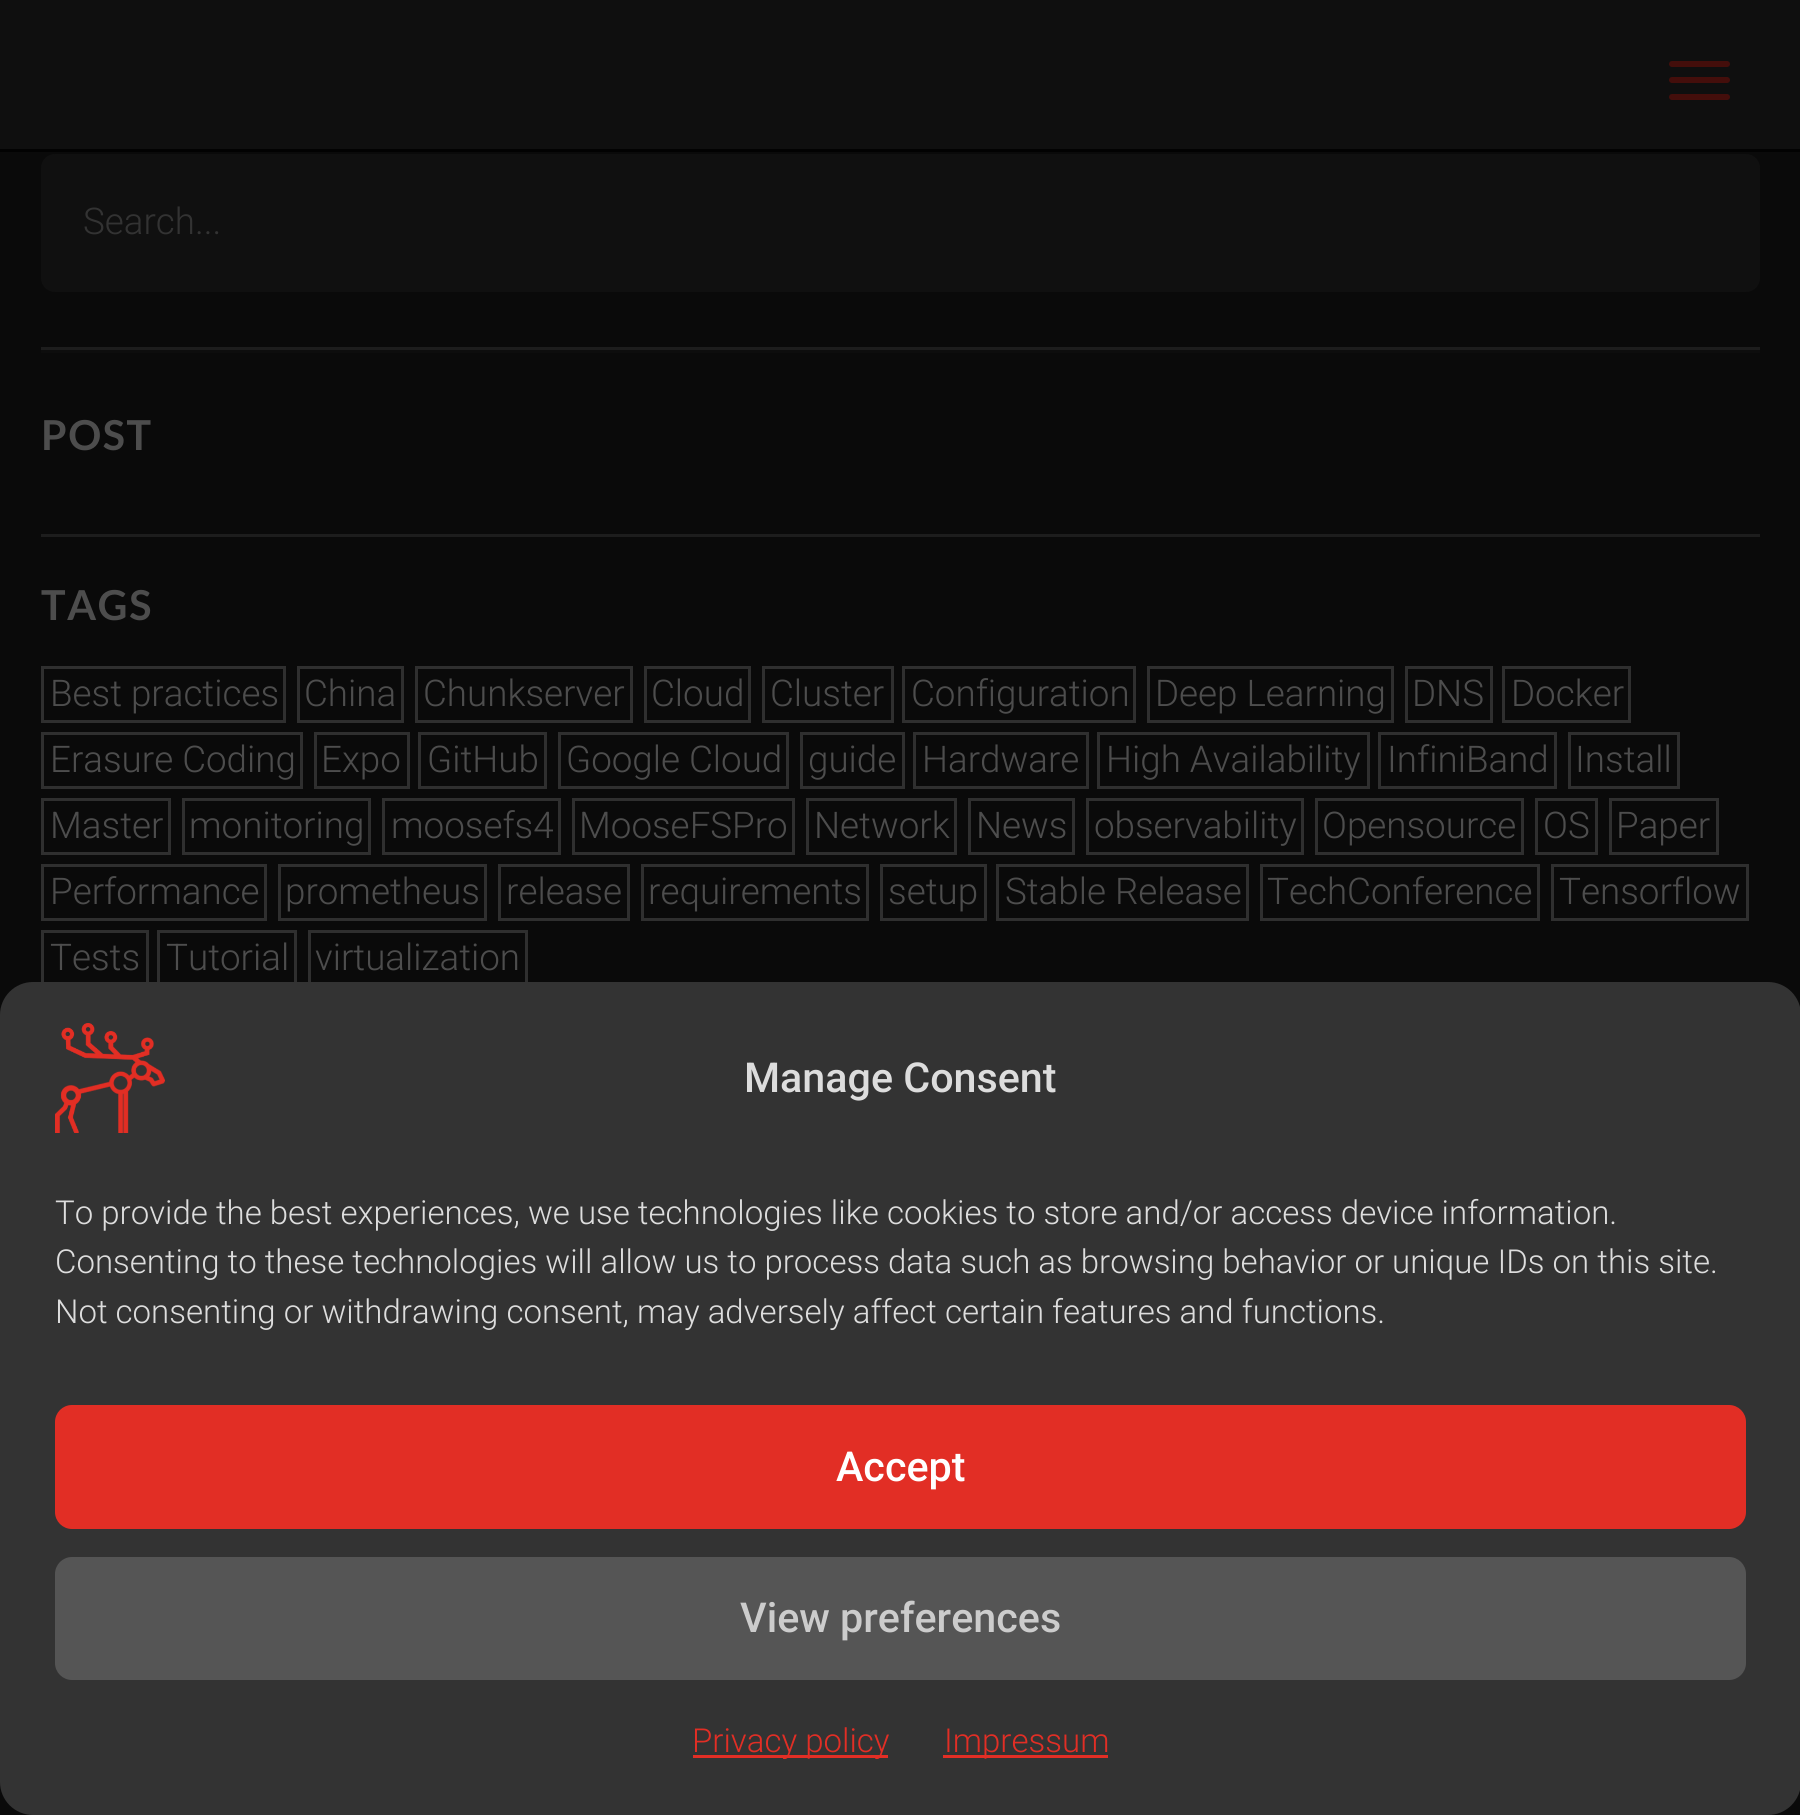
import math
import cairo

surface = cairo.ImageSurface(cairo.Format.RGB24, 1800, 1815)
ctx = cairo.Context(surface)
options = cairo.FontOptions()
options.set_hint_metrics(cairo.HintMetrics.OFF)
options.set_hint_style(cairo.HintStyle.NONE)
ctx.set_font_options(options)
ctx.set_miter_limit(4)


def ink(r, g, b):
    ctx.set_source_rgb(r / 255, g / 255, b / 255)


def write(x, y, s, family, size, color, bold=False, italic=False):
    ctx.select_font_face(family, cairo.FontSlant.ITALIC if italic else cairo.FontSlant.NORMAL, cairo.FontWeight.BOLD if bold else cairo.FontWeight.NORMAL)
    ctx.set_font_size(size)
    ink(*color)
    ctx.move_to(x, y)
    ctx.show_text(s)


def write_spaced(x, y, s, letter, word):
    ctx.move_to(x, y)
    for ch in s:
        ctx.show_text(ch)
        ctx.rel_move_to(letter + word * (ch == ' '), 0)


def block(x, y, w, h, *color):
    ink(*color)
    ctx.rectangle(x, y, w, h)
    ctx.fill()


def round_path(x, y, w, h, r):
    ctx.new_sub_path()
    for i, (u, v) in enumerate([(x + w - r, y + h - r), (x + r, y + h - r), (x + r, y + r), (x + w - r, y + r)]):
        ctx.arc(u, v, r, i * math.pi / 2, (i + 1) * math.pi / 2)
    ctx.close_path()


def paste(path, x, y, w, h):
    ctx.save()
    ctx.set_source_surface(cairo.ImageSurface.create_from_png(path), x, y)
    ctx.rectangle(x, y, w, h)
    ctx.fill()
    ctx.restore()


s1 = dict(family="Roboto Light", size=36.75, color=(51, 51, 51))
s2 = dict(family="Roboto Light", size=36.75, color=(77, 77, 77))
s3 = dict(family="Roboto Medium", size=41.25, color=(221, 221, 221))
s4 = dict(family="Roboto Light", size=33, color=(221, 221, 221))
s5 = dict(family="Roboto Medium", size=41.25, color=(255, 255, 255))
s6 = dict(family="Roboto Medium", size=41.25, color=(204, 204, 204))
s7 = dict(family="Roboto Light", size=33, color=(226, 46, 37))

ink(10, 10, 10)
ctx.paint()
block(0, 0, 1800, 149, 15, 15, 15)
block(0, 149, 1800, 3, 2, 2, 2)
ink(68, 14, 11)
round_path(1669, 61, 61, 6, 3)
ctx.fill()
round_path(1669, 77, 61, 6, 3)
ctx.fill()
round_path(1669, 94, 61, 6, 3)
ctx.fill()
ink(16, 16, 16)
round_path(41, 154, 1719, 138, 14)
ctx.fill()
write(83, 234, "Search...", **s1)
block(41, 350, 1719, 3, 13, 13, 13)
block(41, 347, 1719, 3, 29, 29, 29)
block(41, 534, 1719, 3, 29, 29, 29)
ctx.select_font_face("Lato", cairo.FontSlant.NORMAL, cairo.FontWeight.BOLD)
ctx.set_font_size(41.25)
ink(77, 77, 77)
write_spaced(41, 450, "POST", 1.5, 0)
write_spaced(41, 620, "TAGS", 1.5, 0)
ctx.rectangle(42.5, 667.5, 242, 54)
ink(47, 47, 47)
ctx.set_line_width(3)
ctx.stroke()
write(50, 706, "Best practices", **s2)
ctx.rectangle(298.5, 667.5, 104, 54)
ink(47, 47, 47)
ctx.stroke()
write(304, 706, "China", **s2)
ctx.rectangle(416.5, 667.5, 215, 54)
ink(47, 47, 47)
ctx.stroke()
write(423, 706, "Chunkserver", **s2)
ctx.rectangle(645.5, 667.5, 104, 54)
ink(47, 47, 47)
ctx.stroke()
write(651, 706, "Cloud", **s2)
ctx.rectangle(763.5, 667.5, 129, 54)
ink(47, 47, 47)
ctx.stroke()
write(770, 706, "Cluster", **s2)
ctx.rectangle(903.5, 667.5, 231, 54)
ink(47, 47, 47)
ctx.stroke()
write(911, 706, "Configuration", **s2)
ctx.rectangle(1148.5, 667.5, 244, 54)
ink(47, 47, 47)
ctx.stroke()
write(1155, 706, "Deep Learning", **s2)
ctx.rectangle(1406.5, 667.5, 85, 54)
ink(47, 47, 47)
ctx.stroke()
write(1412, 706, "DNS", **s2)
ctx.rectangle(1503.5, 667.5, 126, 54)
ink(47, 47, 47)
ctx.stroke()
write(1511, 706, "Docker", **s2)
ctx.rectangle(42.5, 733.5, 259, 54)
ink(47, 47, 47)
ctx.stroke()
write(50, 772, "Erasure Coding", **s2)
ctx.rectangle(315.5, 733.5, 93, 54)
ink(47, 47, 47)
ctx.stroke()
write(321, 772, "Expo", **s2)
ctx.rectangle(419.5, 733.5, 126, 54)
ink(47, 47, 47)
ctx.stroke()
write(427, 772, "GitHub", **s2)
ctx.rectangle(559.5, 733.5, 228, 54)
ink(47, 47, 47)
ctx.stroke()
write(566, 772, "Google Cloud", **s2)
ctx.rectangle(801.5, 733.5, 102, 54)
ink(47, 47, 47)
ctx.stroke()
write(808, 772, "guide", **s2)
ctx.rectangle(914.5, 733.5, 173, 54)
ink(47, 47, 47)
ctx.stroke()
write(922, 772, "Hardware", **s2)
ctx.rectangle(1098.5, 733.5, 270, 54)
ink(47, 47, 47)
ctx.stroke()
write(1106, 772, "High Availability", **s2)
ctx.rectangle(1379.5, 733.5, 176, 54)
ink(47, 47, 47)
ctx.stroke()
write(1387, 772, "InfiniBand", **s2)
ctx.rectangle(1569.5, 733.5, 109, 54)
ink(47, 47, 47)
ctx.stroke()
write(1575, 772, "Install", **s2)
ctx.rectangle(42.5, 799.5, 127, 54)
ink(47, 47, 47)
ctx.stroke()
write(50, 838, "Master", **s2)
ctx.rectangle(183.5, 799.5, 186, 54)
ink(47, 47, 47)
ctx.stroke()
write(189, 838, "monitoring", **s2)
ctx.rectangle(383.5, 799.5, 176, 54)
ink(47, 47, 47)
ctx.stroke()
write(391, 838, "moosefs4", **s2)
ctx.rectangle(573.5, 799.5, 220, 54)
ink(47, 47, 47)
ctx.stroke()
write(579, 838, "MooseFSPro", **s2)
ctx.rectangle(807.5, 799.5, 148, 54)
ink(47, 47, 47)
ctx.stroke()
write(814, 838, "Network", **s2)
ctx.rectangle(969.5, 799.5, 104, 54)
ink(47, 47, 47)
ctx.stroke()
write(976, 838, "News", **s2)
ctx.rectangle(1087.5, 799.5, 215, 54)
ink(47, 47, 47)
ctx.stroke()
write(1094, 838, "observability", **s2)
ctx.rectangle(1316.5, 799.5, 206, 54)
ink(47, 47, 47)
ctx.stroke()
write(1322, 838, "Opensource", **s2)
ctx.rectangle(1536.5, 799.5, 60, 54)
ink(47, 47, 47)
ctx.stroke()
write(1543, 838, "OS", **s2)
ctx.rectangle(1610.5, 799.5, 107, 54)
ink(47, 47, 47)
ctx.stroke()
write(1616, 838, "Paper", **s2)
ctx.rectangle(42.5, 865.5, 223, 54)
ink(47, 47, 47)
ctx.stroke()
write(50, 904, "Performance", **s2)
ctx.rectangle(279.5, 865.5, 206, 54)
ink(47, 47, 47)
ctx.stroke()
write(285, 904, "prometheus", **s2)
ctx.rectangle(499.5, 865.5, 129, 54)
ink(47, 47, 47)
ctx.stroke()
write(506, 904, "release", **s2)
ctx.rectangle(642.5, 865.5, 225, 54)
ink(47, 47, 47)
ctx.stroke()
write(648, 904, "requirements", **s2)
ctx.rectangle(881.5, 865.5, 104, 54)
ink(47, 47, 47)
ctx.stroke()
write(888, 904, "setup", **s2)
ctx.rectangle(997.5, 865.5, 250, 54)
ink(47, 47, 47)
ctx.stroke()
write(1005, 904, "Stable Release", **s2)
ctx.rectangle(1261.5, 865.5, 277, 54)
ink(47, 47, 47)
ctx.stroke()
write(1267, 904, "TechConference", **s2)
ctx.rectangle(1552.5, 865.5, 195, 54)
ink(47, 47, 47)
ctx.stroke()
write(1559, 904, "Tensorflow", **s2)
ctx.rectangle(42.5, 931.5, 105, 54)
ink(47, 47, 47)
ctx.stroke()
write(50, 970, "Tests", **s2)
ctx.rectangle(158.5, 931.5, 137, 54)
ink(47, 47, 47)
ctx.stroke()
write(166, 970, "Tutorial", **s2)
ctx.rectangle(309.5, 931.5, 217, 54)
ink(47, 47, 47)
ctx.stroke()
write(315, 970, "virtualization", **s2)
ink(51, 51, 51)
round_path(0, 982, 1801, 833, 33)
ctx.fill()
paste("pic1.png", 55, 1023, 110, 110)
write(744, 1092, "Manage Consent", **s3)
write(55, 1224, "To provide the best experiences, we use technologies like cookies to store and/or access device information.", **s4)
write(55, 1273, "Consenting to these technologies will allow us to process data such as browsing behavior or unique IDs on this site.", **s4)
write(55, 1323, "Not consenting or withdrawing consent, may adversely affect certain features and functions.", **s4)
ink(226, 46, 37)
round_path(56.5, 1406.5, 1688, 121, 15.5)
ctx.fill_preserve()
ctx.stroke()
write(836, 1481, "Accept", **s5)
ink(85, 85, 85)
round_path(56.5, 1558.5, 1688, 120, 15.5)
ctx.fill_preserve()
ctx.stroke()
write(740, 1632, "View preferences", **s6)
block(693, 1755, 195, 3, 226, 46, 37)
write(692, 1752, "Privacy policy", **s7)
block(943, 1755, 165, 3, 226, 46, 37)
write(944, 1752, "Impressum", **s7)
surface.write_to_png("screenshot.png")
